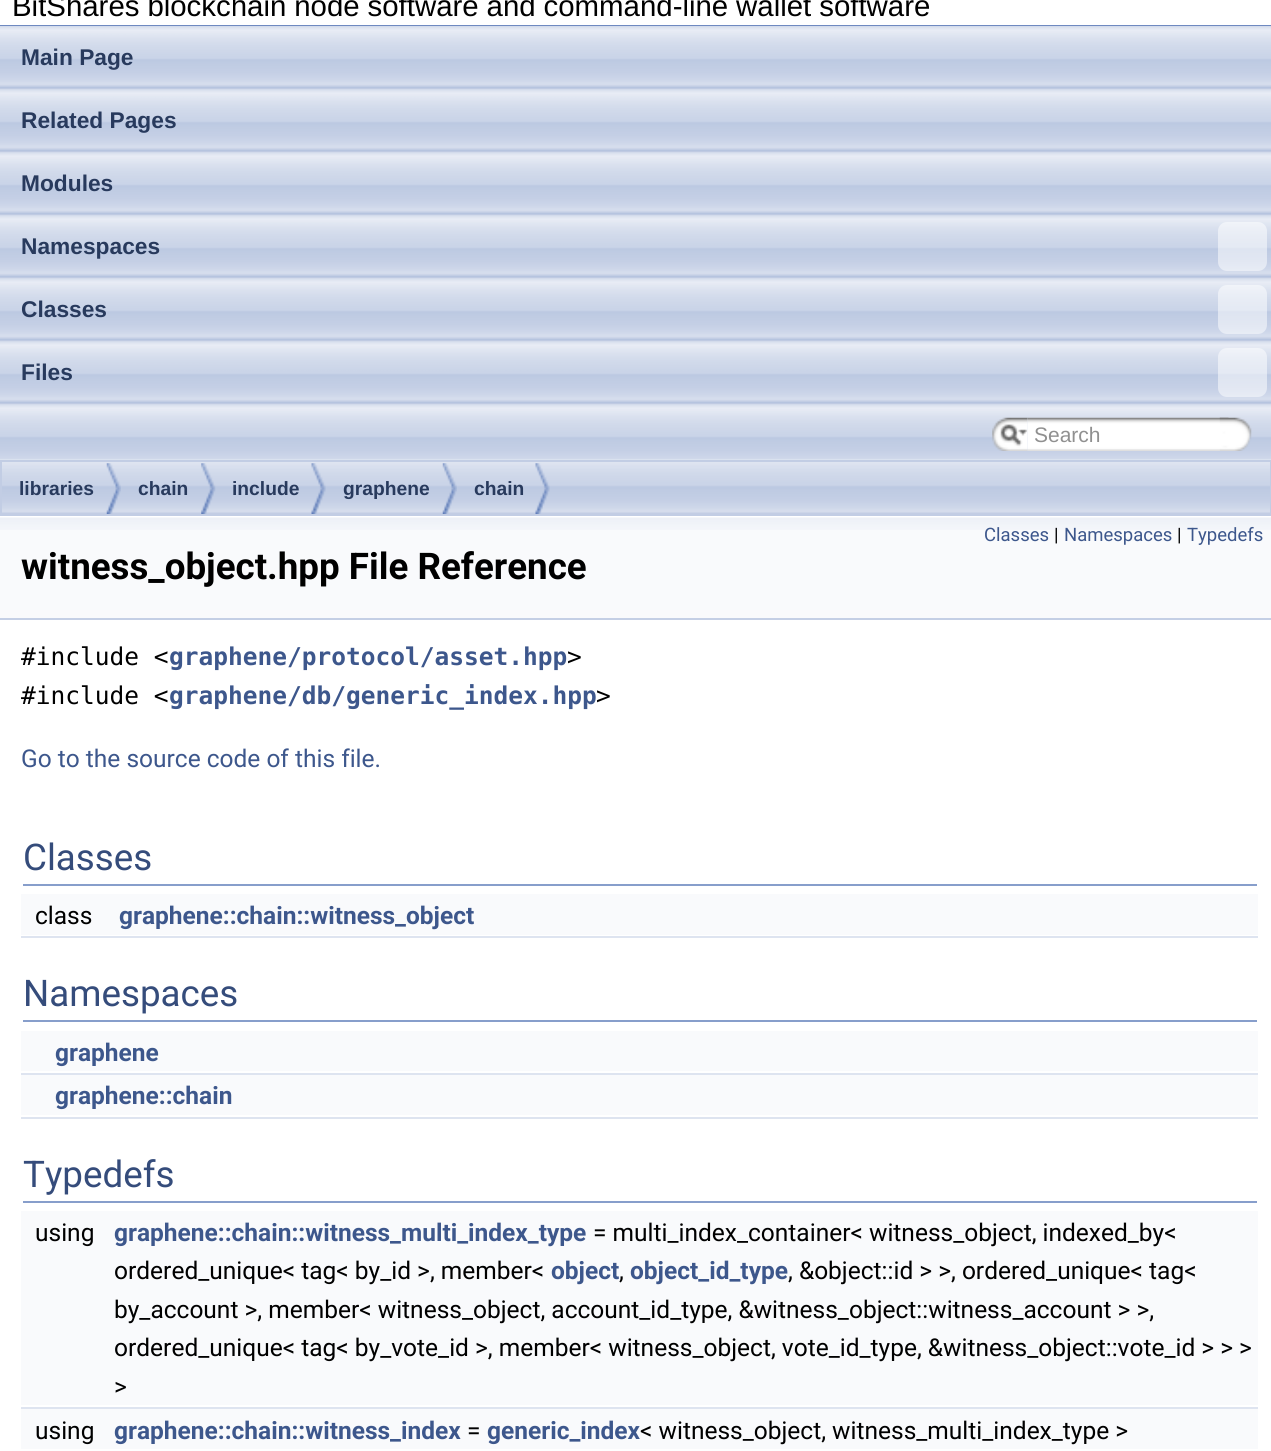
import math
import cairo

surface = cairo.ImageSurface(cairo.Format.RGB24, 1271, 1451)
ctx = cairo.Context(surface)
options = cairo.FontOptions()
options.set_hint_metrics(cairo.HintMetrics.OFF)
options.set_hint_style(cairo.HintStyle.NONE)
ctx.set_font_options(options)
ctx.set_miter_limit(4)


def ink(r, g, b):
    ctx.set_source_rgb(r / 255, g / 255, b / 255)


def write(x, y, s, family, size, color, bold=False, italic=False):
    ctx.select_font_face(family, cairo.FontSlant.ITALIC if italic else cairo.FontSlant.NORMAL, cairo.FontWeight.BOLD if bold else cairo.FontWeight.NORMAL)
    ctx.set_font_size(size)
    ink(*color)
    ctx.move_to(x, y)
    ctx.show_text(s)


def write_spaced(x, y, s, letter, word):
    ctx.move_to(x, y)
    for ch in s:
        ctx.show_text(ch)
        ctx.rel_move_to(letter + word * (ch == ' '), 0)


def block(x, y, w, h, *color):
    ink(*color)
    ctx.rectangle(x, y, w, h)
    ctx.fill()


def round_path(x, y, w, h, r):
    ctx.new_sub_path()
    for i, (u, v) in enumerate([(x + w - r, y + h - r), (x + r, y + h - r), (x + r, y + r), (x + w - r, y + r)]):
        ctx.arc(u, v, r, i * math.pi / 2, (i + 1) * math.pi / 2)
    ctx.close_path()


def paste(path, x, y, w, h):
    ctx.save()
    ctx.set_source_surface(cairo.ImageSurface.create_from_png(path), x, y)
    ctx.rectangle(x, y, w, h)
    ctx.fill()
    ctx.restore()


s1 = dict(family="Liberation Sans", size=22.75, color=(40, 58, 93), bold=True)
s2 = dict(family="Liberation Sans", size=21, color=(144, 144, 144))
s3 = dict(family="Liberation Sans", size=19.25, color=(40, 58, 93), bold=True)
s4 = dict(family="Roboto", size=18.5, color=(61, 87, 140))
s5 = dict(family="Roboto", size=18.5, color=(0, 0, 0))
s6 = dict(family="Roboto", size=36.75, color=(0, 0, 0), bold=True)
s7 = dict(family="DejaVu Sans Mono", size=24.5, color=(0, 0, 0))
s8 = dict(family="DejaVu Sans Mono", size=24.5, color=(61, 87, 140), bold=True)
s9 = dict(family="Roboto", size=24.5, color=(61, 87, 140))
s10 = dict(family="Roboto", size=36.75, color=(53, 76, 123))
s11 = dict(family="Roboto", size=24.5, color=(0, 0, 0))
s12 = dict(family="Roboto", size=24.5, color=(61, 87, 140), bold=True)

ink(255, 255, 255)
ctx.paint()
block(0, 25, 1271, 1, 83, 115, 180)
ctx.select_font_face("Liberation Sans")
ctx.set_font_size(29.4)
ink(0, 0, 0)
write_spaced(12, 16, "BitShares blockchain node software and command-line wallet software", 0, -0.25)
paste("pic6.png", 0, 459, 1271, 55)
paste("pic1.png", 0, 25, 1271, 435)
write(21, 65, "Main Page", **s1)
write(21, 128, "Related Pages", **s1)
write(21, 191, "Modules", **s1)
write(21, 254, "Namespaces", **s1)
ctx.set_source_rgba(1, 1, 1, 0.5)
round_path(1218, 222, 49, 49, 9)
ctx.fill()
write(21, 317, "Classes", **s1)
ctx.set_source_rgba(1, 1, 1, 0.5)
round_path(1218, 285, 49, 49, 9)
ctx.fill()
write(21, 380, "Files", **s1)
ctx.set_source_rgba(1, 1, 1, 0.5)
round_path(1218, 348, 49, 49, 9)
ctx.fill()
paste("pic2.png", 992, 417, 36, 34)
paste("pic3.png", 1000, 424, 28, 22)
paste("pic4.png", 1027, 417, 202, 34)
write(1034, 442, "Search", **s2)
paste("pic5.png", 1219, 417, 33, 34)
ctx.rectangle(1, 461, 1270, 54)
ink(194, 205, 228)
ctx.stroke()
paste("pic7.png", 106, 463, 15, 51)
write(19, 495, "libraries", **s3)
paste("pic8.png", 201, 463, 15, 51)
write(138, 495, "chain", **s3)
paste("pic9.png", 311, 463, 15, 51)
write(232, 495, "include", **s3)
paste("pic10.png", 442, 463, 15, 51)
write(343, 495, "graphene", **s3)
paste("pic11.png", 535, 463, 15, 51)
write(474, 495, "chain", **s3)
block(0, 530, 1271, 88, 249, 250, 252)
paste("pic12.png", 0, 516, 1271, 14)
block(0, 618, 1271, 2, 196, 207, 229)
write(984, 541, "Classes", **s4)
write(1054, 541, "|", **s5)
write(1064, 541, "Namespaces", **s4)
write(1177, 541, "|", **s5)
write(1187, 541, "Typedefs", **s4)
write(21, 579, "witness_object.hpp File Reference", **s6)
write(21, 665, "#include <", **s7)
write(169, 665, "graphene/protocol/asset.hpp", **s8)
write(567, 665, ">", **s7)
write(21, 704, "#include <", **s7)
write(169, 704, "graphene/db/generic_index.hpp", **s8)
write(596, 704, ">", **s7)
write(21, 767, "Go to the source code of this file.", **s9)
block(23, 884, 1234, 2, 135, 158, 203)
write(23, 870, "Classes", **s10)
block(21, 894, 1237, 41, 249, 250, 252)
write(35, 924, "class", **s11)
write(119, 924, "graphene::chain::witness_object", **s12)
block(21, 936, 1237, 2, 222, 228, 240)
block(23, 1020, 1234, 2, 135, 158, 203)
write(23, 1006, "Namespaces", **s10)
block(21, 1031, 1237, 40, 249, 250, 252)
write(55, 1061, "graphene", **s12)
block(21, 1073, 1237, 2, 222, 228, 240)
block(21, 1075, 1237, 40, 249, 250, 252)
write(55, 1104, "graphene::chain", **s12)
block(21, 1117, 1237, 2, 222, 228, 240)
block(23, 1201, 1234, 2, 135, 158, 203)
write(23, 1187, "Typedefs", **s10)
block(21, 1211, 1237, 194, 249, 250, 252)
write(35, 1241, "using", **s11)
write(114, 1241, "graphene::chain::witness_multi_index_type", **s12)
write(593, 1241, "= multi_index_container< witness_object, indexed_by<", **s11)
write(114, 1279, "ordered_unique< tag< by_id >, member<", **s11)
write(551, 1279, "object", **s12)
write(619, 1279, ",", **s11)
write(630, 1279, "object_id_type", **s12)
write(788, 1279, ", &object::id > >, ordered_unique< tag<", **s11)
write(114, 1318, "by_account >, member< witness_object, account_id_type, &witness_object::witness_account > >,", **s11)
write(114, 1356, "ordered_unique< tag< by_vote_id >, member< witness_object, vote_id_type, &witness_object::vote_id > > >", **s11)
write(114, 1395, ">", **s11)
block(21, 1407, 1237, 2, 222, 228, 240)
block(21, 1409, 1237, 40, 249, 250, 252)
write(35, 1439, "using", **s11)
write(114, 1439, "graphene::chain::witness_index", **s12)
write(467, 1439, "=", **s11)
write(487, 1439, "generic_index", **s12)
write(640, 1439, "< witness_object, witness_multi_index_type >", **s11)
surface.write_to_png("screenshot.png")
